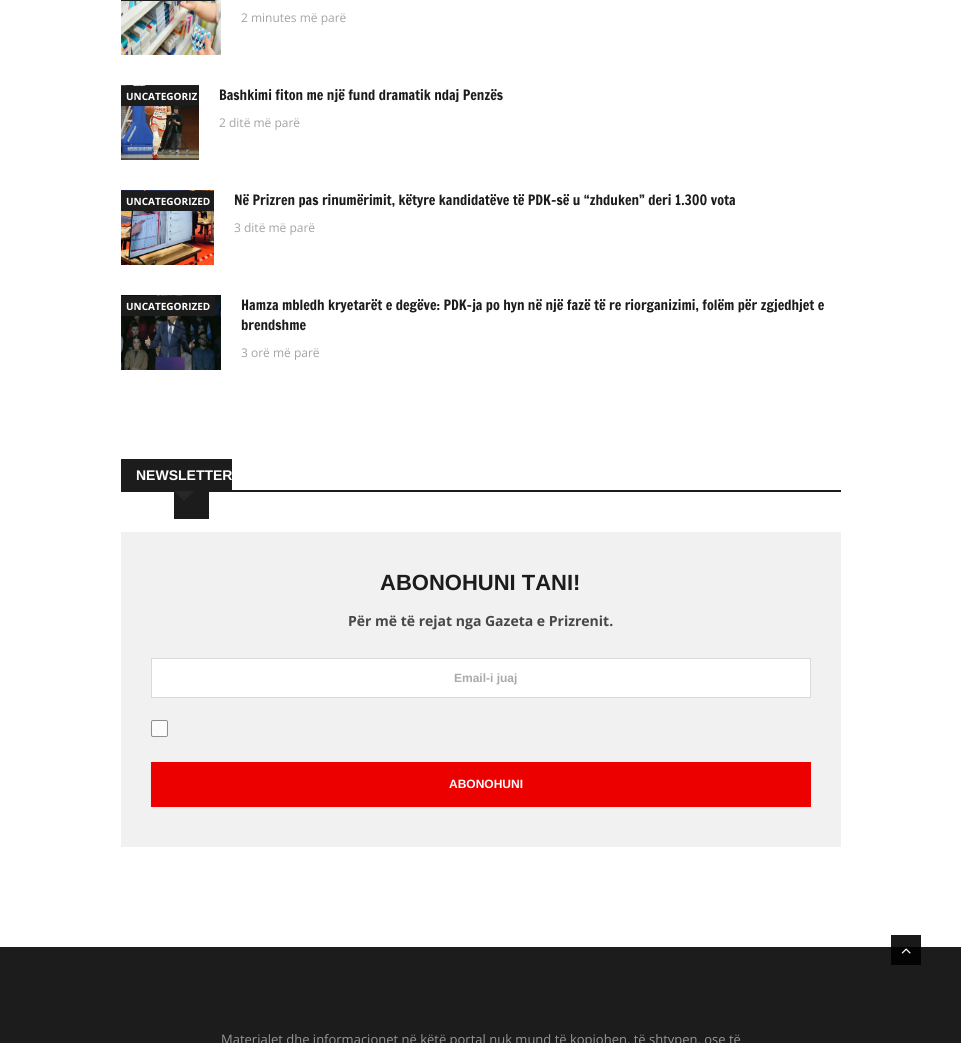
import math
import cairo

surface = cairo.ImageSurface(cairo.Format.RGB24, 961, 1043)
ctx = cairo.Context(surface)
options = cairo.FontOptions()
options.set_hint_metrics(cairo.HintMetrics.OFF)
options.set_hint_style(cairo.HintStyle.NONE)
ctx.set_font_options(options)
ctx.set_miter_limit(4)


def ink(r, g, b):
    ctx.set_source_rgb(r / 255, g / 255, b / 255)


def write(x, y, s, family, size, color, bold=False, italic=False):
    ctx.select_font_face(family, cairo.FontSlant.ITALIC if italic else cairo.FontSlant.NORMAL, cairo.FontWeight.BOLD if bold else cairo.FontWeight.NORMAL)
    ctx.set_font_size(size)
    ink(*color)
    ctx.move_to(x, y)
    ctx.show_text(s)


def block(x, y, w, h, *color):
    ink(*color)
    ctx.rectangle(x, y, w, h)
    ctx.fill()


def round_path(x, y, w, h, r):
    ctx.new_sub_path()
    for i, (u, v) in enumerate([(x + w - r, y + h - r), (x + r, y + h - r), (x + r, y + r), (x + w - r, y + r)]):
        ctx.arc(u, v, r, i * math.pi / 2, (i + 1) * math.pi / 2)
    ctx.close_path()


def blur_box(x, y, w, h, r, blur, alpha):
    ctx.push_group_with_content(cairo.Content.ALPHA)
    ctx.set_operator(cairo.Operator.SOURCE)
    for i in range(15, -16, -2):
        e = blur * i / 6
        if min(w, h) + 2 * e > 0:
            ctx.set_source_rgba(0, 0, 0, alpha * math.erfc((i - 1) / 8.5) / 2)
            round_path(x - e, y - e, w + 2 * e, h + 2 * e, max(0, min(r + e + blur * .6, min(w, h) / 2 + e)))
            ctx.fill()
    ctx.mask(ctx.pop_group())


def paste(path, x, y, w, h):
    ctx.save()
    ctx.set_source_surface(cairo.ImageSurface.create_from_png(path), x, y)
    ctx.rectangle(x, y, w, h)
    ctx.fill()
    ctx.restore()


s1 = dict(family="Open Sans", size=12, color=(163, 163, 163))
s2 = dict(family="Open Sans", size=10, color=(255, 255, 255), bold=True)
s3 = dict(family="Francois One", size=14, color=(28, 28, 28))
s4 = dict(family="Arimo", size=14, color=(255, 255, 255), bold=True)
s5 = dict(family="Arimo", size=22, color=(28, 28, 28), bold=True)
s6 = dict(family="Open Sans", size=14, color=(71, 71, 71), bold=True)
s7 = dict(family="Arimo", size=12, color=(170, 170, 170), bold=True)
s8 = dict(family="Arimo", size=12, color=(255, 255, 255), bold=True)
s9 = dict(family="Open Sans", size=13, color=(150, 150, 150))

ink(255, 255, 255)
ctx.paint()
block(891, 935, 30, 12, 25, 25, 25)
paste("pic1.png", 121, 0, 100, 55)
block(121, 0, 94, 1, 28, 28, 28)
write(241, 22, "2 minutes më parë", **s1)
paste("pic2.png", 121, 85, 78, 75)
block(121, 86, 78, 20, 28, 28, 28)
write(126, 100, "UNCATEGORIZ", **s2)
write(219, 100, "Bashkimi fiton me një fund dramatik ndaj Penzës", **s3)
write(219, 127, "2 ditë më parë", **s1)
paste("pic3.png", 121, 190, 93, 75)
block(121, 191, 93, 20, 28, 28, 28)
write(126, 205, "UNCATEGORIZED", **s2)
write(234, 205, "Në Prizren pas rinumërimit, këtyre kandidatëve të PDK-së u “zhduken” deri 1.300 vota", **s3)
write(234, 232, "3 ditë më parë", **s1)
paste("pic4.png", 121, 295, 100, 75)
block(121, 296, 94, 20, 28, 28, 28)
write(126, 310, "UNCATEGORIZED", **s2)
write(241, 310, "Hamza mbledh kryetarët e degëve: PDK-ja po hyn në një fazë të re riorganizimi, folëm për zgjedhjet e", **s3)
write(241, 330, "brendshme", **s3)
write(241, 357, "3 orë më parë", **s1)
block(121, 490, 720, 2, 28, 28, 28)
block(121, 459, 111, 31, 28, 28, 28)
block(174, 492, 35, 27, 28, 28, 28)
write(136, 480, "NEWSLETTER", **s4)
ink(39, 39, 39)
ctx.new_path()
ctx.move_to(174, 491)
ctx.line_to(194, 491)
ctx.line_to(184, 501)
ctx.close_path()
ctx.fill()
block(121, 532, 720, 315, 241, 241, 241)
write(380, 590, "ABONOHUNI TANI!", **s5)
write(348, 626, "Për më të rejat nga Gazeta e Prizrenit.", **s6)
ink(255, 255, 255)
ctx.rectangle(151.5, 658.5, 659, 39)
ctx.fill_preserve()
ink(218, 218, 218)
ctx.set_line_width(1)
ctx.stroke()
write(454, 682, "Email-i juaj", **s7)
ink(252, 252, 252)
round_path(151.5, 720.5, 16, 16, 1.5)
ctx.fill_preserve()
ink(143, 143, 143)
ctx.stroke()
ink(0, 0, 0)
blur_box(151, 763, 660, 45, 0, 1, 0.05)
block(151, 762, 660, 45, 236, 0, 0)
write(449, 788, "ABONOHUNI", **s8)
block(0, 947, 961, 96, 28, 28, 28)
block(891, 947, 30, 18, 3, 3, 3)
paste("pic5.png", 901, 948, 10, 6)
write(221, 1044, "Materialet dhe informacionet në këtë portal nuk mund të kopjohen, të shtypen, ose të", **s9)
surface.write_to_png("screenshot.png")
